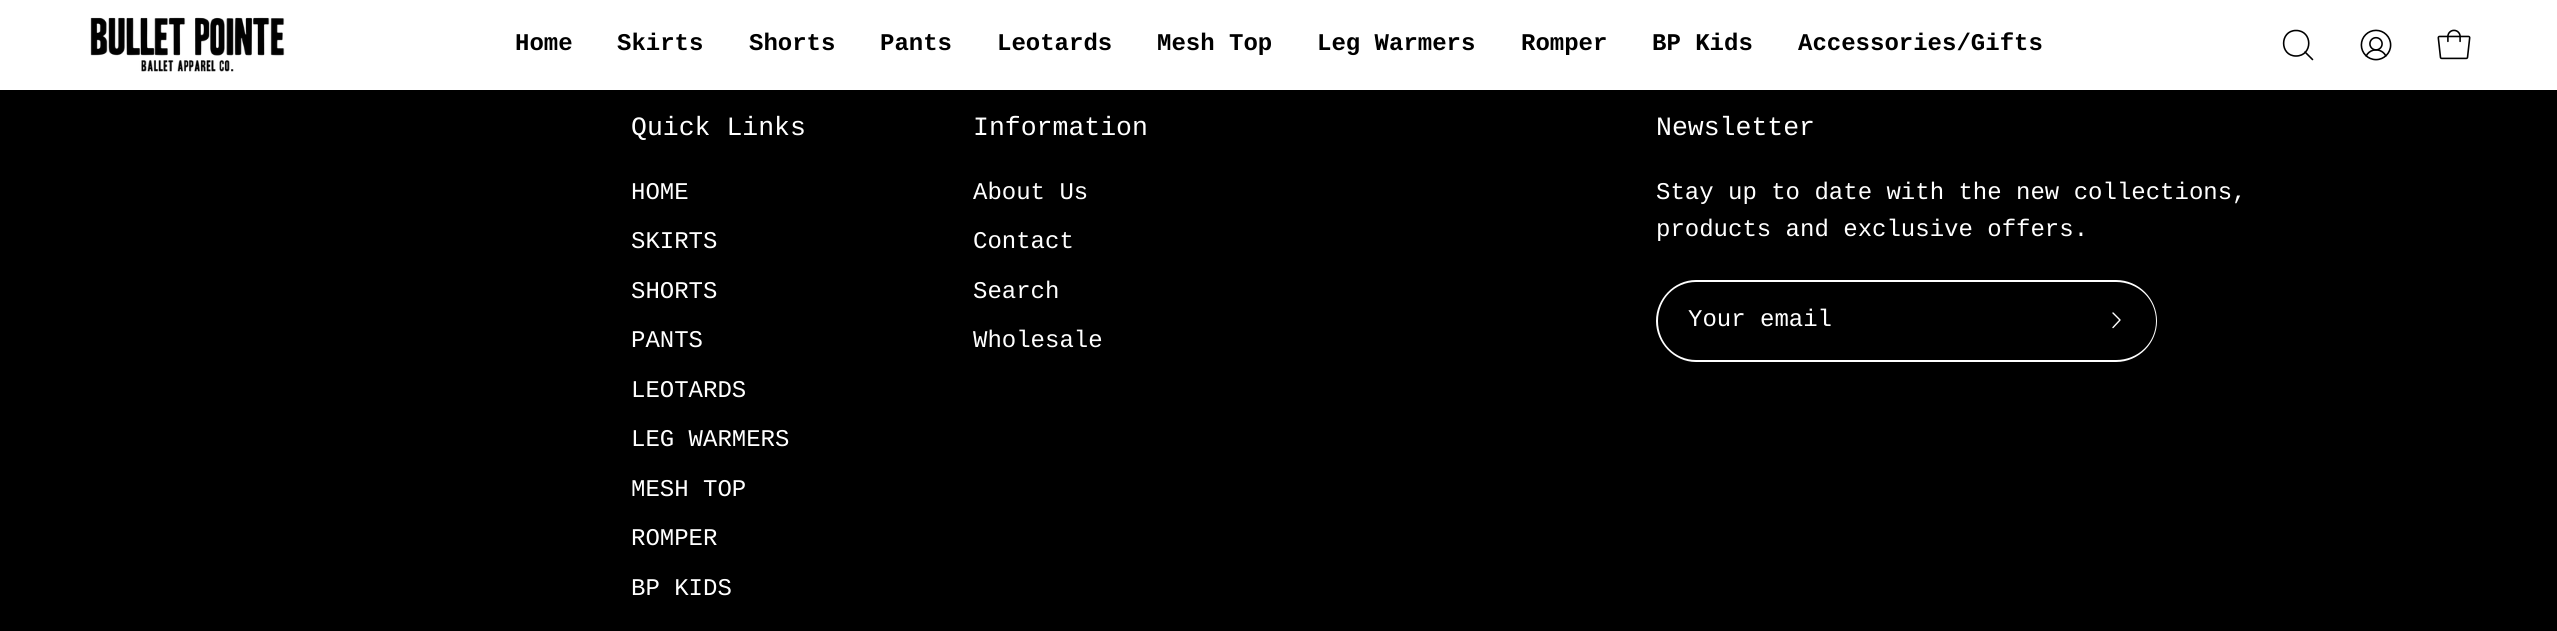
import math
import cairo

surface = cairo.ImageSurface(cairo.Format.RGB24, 2557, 631)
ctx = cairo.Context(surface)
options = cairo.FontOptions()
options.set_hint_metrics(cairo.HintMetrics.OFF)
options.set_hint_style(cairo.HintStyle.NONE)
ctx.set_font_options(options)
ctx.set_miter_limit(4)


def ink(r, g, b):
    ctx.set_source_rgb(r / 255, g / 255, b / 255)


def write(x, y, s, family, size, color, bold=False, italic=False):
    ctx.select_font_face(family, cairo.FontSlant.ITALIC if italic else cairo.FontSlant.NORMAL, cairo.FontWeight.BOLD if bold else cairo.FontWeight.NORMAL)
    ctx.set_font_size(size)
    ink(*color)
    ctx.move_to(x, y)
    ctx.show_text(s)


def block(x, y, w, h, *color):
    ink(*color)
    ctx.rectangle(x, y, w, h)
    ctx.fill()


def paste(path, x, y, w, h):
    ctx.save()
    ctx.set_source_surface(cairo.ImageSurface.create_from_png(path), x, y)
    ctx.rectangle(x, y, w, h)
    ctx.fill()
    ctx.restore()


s1 = dict(family="Liberation Mono", size=24, color=(0, 0, 0), bold=True)
s2 = dict(family="Liberation Mono", size=26.5, color=(255, 255, 255))
s3 = dict(family="Liberation Mono", size=24, color=(255, 255, 255))

ink(0, 0, 0)
ctx.paint()
block(0, 0, 2557, 90, 255, 255, 255)
paste("pic1.png", 90, 17, 195, 55)
write(515, 50, "Home", **s1)
write(617, 50, "Skirts", **s1)
write(749, 50, "Shorts", **s1)
write(880, 50, "Pants", **s1)
write(997, 50, "Leotards", **s1)
write(1157, 50, "Mesh Top", **s1)
write(1317, 50, "Leg Warmers", **s1)
write(1521, 50, "Romper", **s1)
write(1652, 50, "BP Kids", **s1)
write(1798, 50, "Accessories/Gifts", **s1)
ctx.new_path()
ctx.move_to(2296, 56)
ctx.curve_to(2313, 56, 2313, 30.5, 2296, 30.5)
ctx.curve_to(2279.5, 30.5, 2279.5, 56, 2296, 56)
ctx.close_path()
ctx.move_to(2305, 52)
ctx.line_to(2312.5, 59.5)
ctx.set_line_width(1.6)
ctx.set_line_cap(cairo.LineCap.ROUND)
ctx.set_line_join(cairo.LineJoin.ROUND)
ctx.stroke()
paste("pic2.png", 2360, 29, 32, 32)
paste("pic3.png", 2437, 29, 34, 31)
write(631, 135, "Quick Links", **s2)
write(631, 199, "HOME", **s3)
write(631, 248, "SKIRTS", **s3)
write(631, 298, "SHORTS", **s3)
write(631, 347, "PANTS", **s3)
write(631, 397, "LEOTARDS", **s3)
write(631, 446, "LEG WARMERS", **s3)
write(631, 496, "MESH TOP", **s3)
write(631, 545, "ROMPER", **s3)
write(631, 595, "BP KIDS", **s3)
write(973, 135, "Information", **s2)
write(973, 199, "About Us", **s3)
write(973, 248, "Contact", **s3)
write(973, 298, "Search", **s3)
write(973, 347, "Wholesale", **s3)
write(1656, 135, "Newsletter", **s2)
write(1656, 199, "Stay up to date with the new collections,", **s3)
write(1656, 236, "products and exclusive offers.", **s3)
ctx.set_fill_rule(cairo.FillRule.EVEN_ODD)
ctx.new_path()
ctx.move_to(1696, 280)
ctx.line_to(2076, 280)
ctx.line_to(2076, 362)
ctx.line_to(1696, 362)
ctx.curve_to(1674, 362, 1656, 343, 1656, 321)
ctx.curve_to(1656, 299, 1674, 280, 1696, 280)
ctx.close_path()
ctx.move_to(1696, 282)
ctx.line_to(2076, 282)
ctx.line_to(2076, 360)
ctx.line_to(1696, 360)
ctx.curve_to(1675, 360, 1658, 343, 1658, 321)
ctx.curve_to(1658, 299, 1675, 282, 1696, 282)
ctx.close_path()
ctx.fill()
write(1688, 326, "Your email", **s3)
ctx.new_path()
ctx.move_to(2076, 280)
ctx.line_to(2116, 280)
ctx.curve_to(2139, 280, 2157, 299, 2157, 321)
ctx.curve_to(2157, 343, 2139, 362, 2116, 362)
ctx.line_to(2076, 362)
ctx.close_path()
ctx.move_to(2076, 282)
ctx.line_to(2116, 282)
ctx.curve_to(2138, 282, 2156, 299, 2156, 321)
ctx.curve_to(2156, 343, 2138, 360, 2116, 360)
ctx.line_to(2076, 360)
ctx.close_path()
ctx.fill()
ctx.new_path()
ctx.move_to(2113, 313)
ctx.line_to(2120, 320)
ctx.line_to(2113, 327.5)
ctx.set_line_width(1.4)
ctx.stroke()
surface.write_to_png("screenshot.png")
